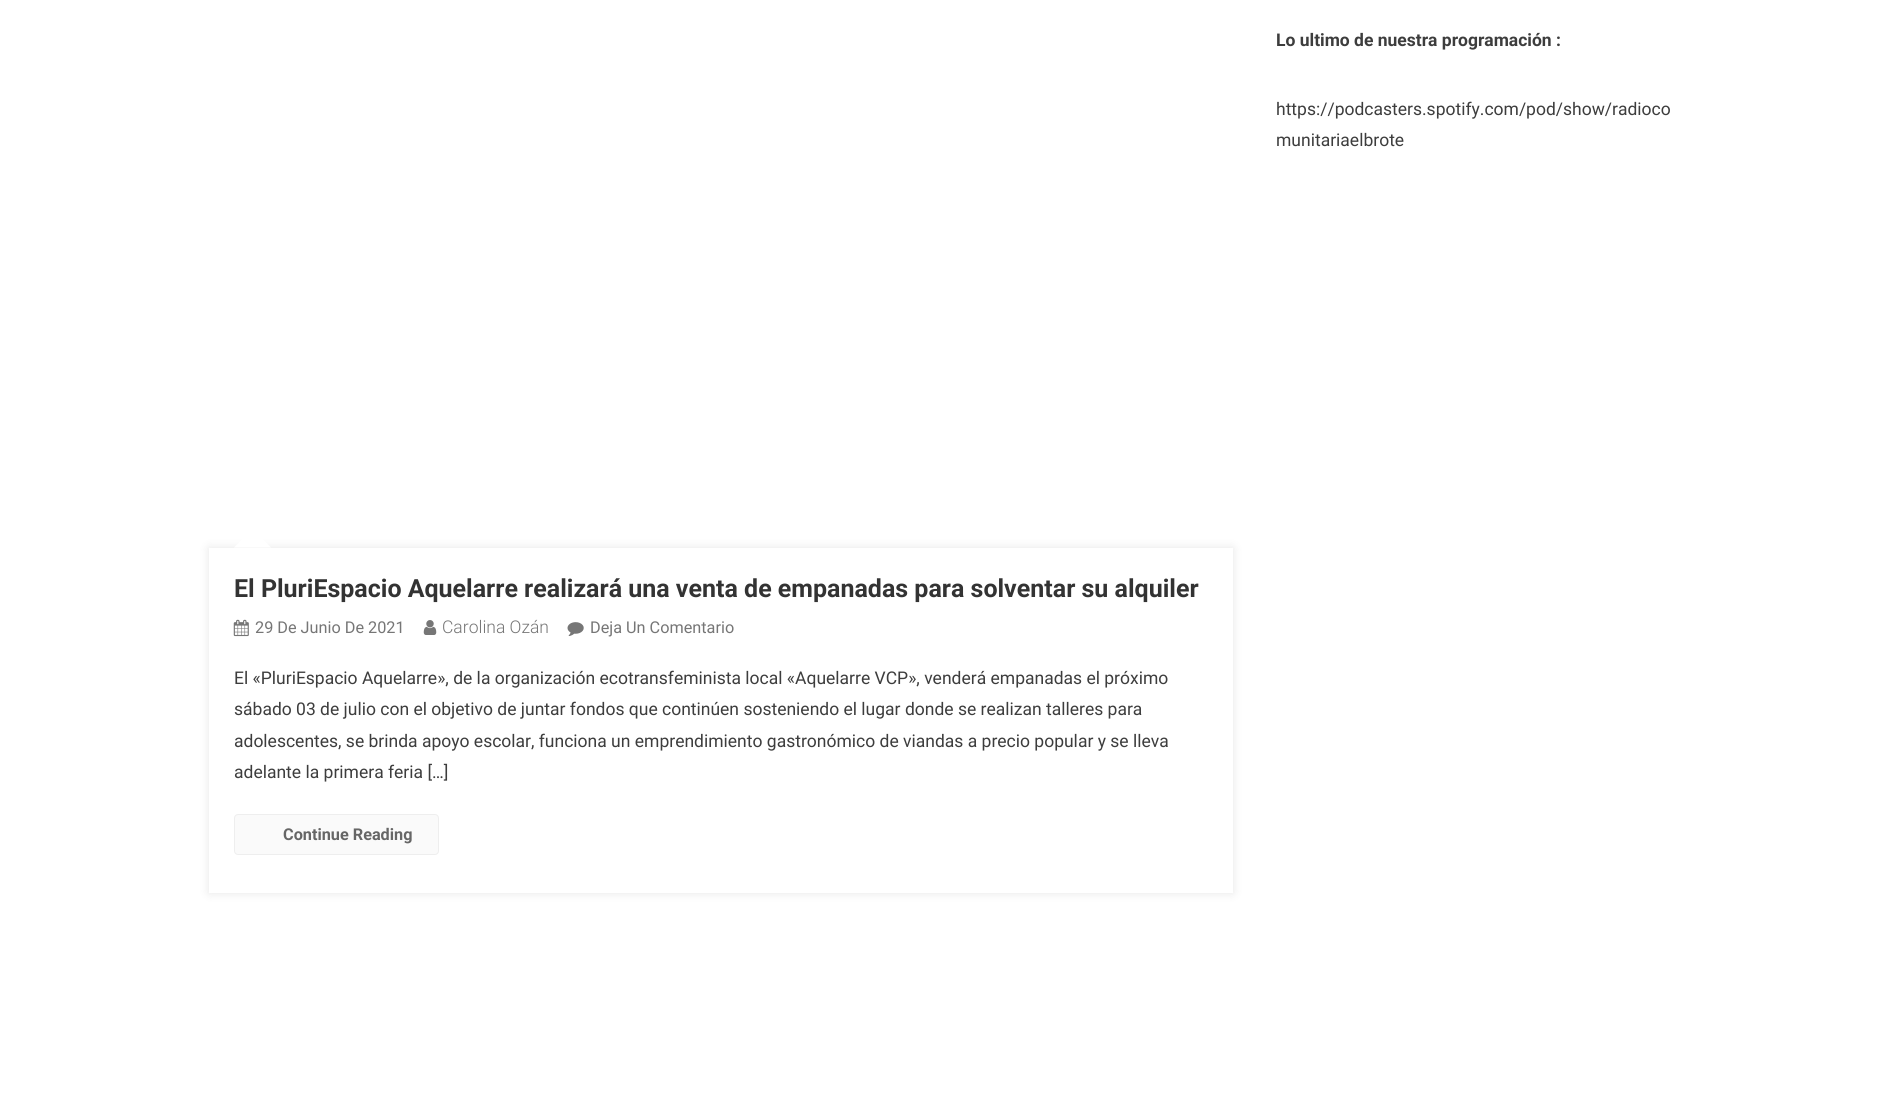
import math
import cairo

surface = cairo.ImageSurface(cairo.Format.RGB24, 1879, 1108)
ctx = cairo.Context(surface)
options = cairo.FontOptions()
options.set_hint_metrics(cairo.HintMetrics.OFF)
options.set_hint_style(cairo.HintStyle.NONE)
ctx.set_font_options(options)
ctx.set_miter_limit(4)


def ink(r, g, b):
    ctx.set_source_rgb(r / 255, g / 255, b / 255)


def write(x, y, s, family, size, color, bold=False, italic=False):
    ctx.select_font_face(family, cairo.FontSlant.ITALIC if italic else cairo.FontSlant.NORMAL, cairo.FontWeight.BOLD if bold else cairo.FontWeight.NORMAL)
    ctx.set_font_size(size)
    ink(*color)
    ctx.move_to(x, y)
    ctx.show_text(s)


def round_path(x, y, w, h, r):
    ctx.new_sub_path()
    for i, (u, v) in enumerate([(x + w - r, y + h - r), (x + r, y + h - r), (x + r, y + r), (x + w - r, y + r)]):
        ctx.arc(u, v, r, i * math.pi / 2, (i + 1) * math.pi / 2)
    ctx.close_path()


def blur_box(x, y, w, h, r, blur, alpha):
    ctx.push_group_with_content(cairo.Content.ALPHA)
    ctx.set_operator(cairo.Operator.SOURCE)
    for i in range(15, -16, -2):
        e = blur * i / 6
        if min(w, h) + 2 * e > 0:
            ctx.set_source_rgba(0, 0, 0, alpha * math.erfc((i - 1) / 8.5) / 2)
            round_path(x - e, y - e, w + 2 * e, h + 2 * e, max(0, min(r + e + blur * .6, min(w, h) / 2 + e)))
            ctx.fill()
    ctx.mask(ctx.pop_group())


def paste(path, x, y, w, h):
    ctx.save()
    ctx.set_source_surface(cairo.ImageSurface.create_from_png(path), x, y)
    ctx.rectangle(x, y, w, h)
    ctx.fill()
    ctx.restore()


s1 = dict(family="Roboto", size=17.5, color=(61, 61, 61), bold=True)
s2 = dict(family="Roboto", size=17.5, color=(61, 61, 61))
s3 = dict(family="Roboto", size=25, color=(51, 51, 51), bold=True)
s4 = dict(family="Roboto", size=16.25, color=(118, 118, 118))
s5 = dict(family="Roboto Light", size=17.5, color=(118, 118, 118))
s6 = dict(family="Roboto", size=16.25, color=(102, 102, 102), bold=True)

ink(255, 255, 255)
ctx.paint()
write(1276, 46, "Lo ultimo de nuestra programación :", **s1)
write(1276, 115, "https://podcasters.spotify.com/pod/show/radioco", **s2)
write(1276, 146, "munitariaelbrote", **s2)
ctx.save()
ctx.set_fill_rule(cairo.FillRule.EVEN_ODD)
ctx.new_path()
ctx.move_to(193, 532)
ctx.line_to(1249, 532)
ctx.line_to(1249, 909)
ctx.line_to(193, 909)
ctx.close_path()
ctx.move_to(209, 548)
ctx.line_to(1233, 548)
ctx.line_to(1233, 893)
ctx.line_to(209, 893)
ctx.close_path()
ctx.clip()
ink(0, 0, 0)
blur_box(209, 548, 1024, 345, 0, 5, 0.1)
ctx.restore()
ink(255, 255, 255)
ctx.new_path()
ctx.move_to(271, 547.5)
ctx.line_to(234, 547.5)
ctx.line_to(252.5, 529)
ctx.close_path()
ctx.fill()
write(234, 597, "El PluriEspacio Aquelarre realizará una venta de empanadas para solventar su alquiler", **s3)
paste("pic1.png", 233, 619, 16, 18)
write(255, 633, "29 De Junio De 2021", **s4)
paste("pic2.png", 423, 620, 14, 15)
write(442, 633, "Carolina Ozán", **s5)
paste("pic3.png", 567, 622, 17, 14)
write(590, 633, "Deja Un Comentario", **s4)
write(234, 684, "El «PluriEspacio Aquelarre», de la organización ecotransfeminista local «Aquelarre VCP», venderá empanadas el próximo", **s2)
write(234, 715, "sábado 03 de julio con el objetivo de juntar fondos que continúen sosteniendo el lugar donde se realizan talleres para", **s2)
write(234, 747, "adolescentes, se brinda apoyo escolar, funciona un emprendimiento gastronómico de viandas a precio popular y se lleva", **s2)
write(234, 778, "adelante la primera feria […]", **s2)
ink(250, 250, 250)
round_path(234.5, 814.5, 204, 40, 3.5)
ctx.fill_preserve()
ink(238, 238, 238)
ctx.set_line_width(1)
ctx.stroke()
write(283, 840, "Continue Reading", **s6)
surface.write_to_png("screenshot.png")
